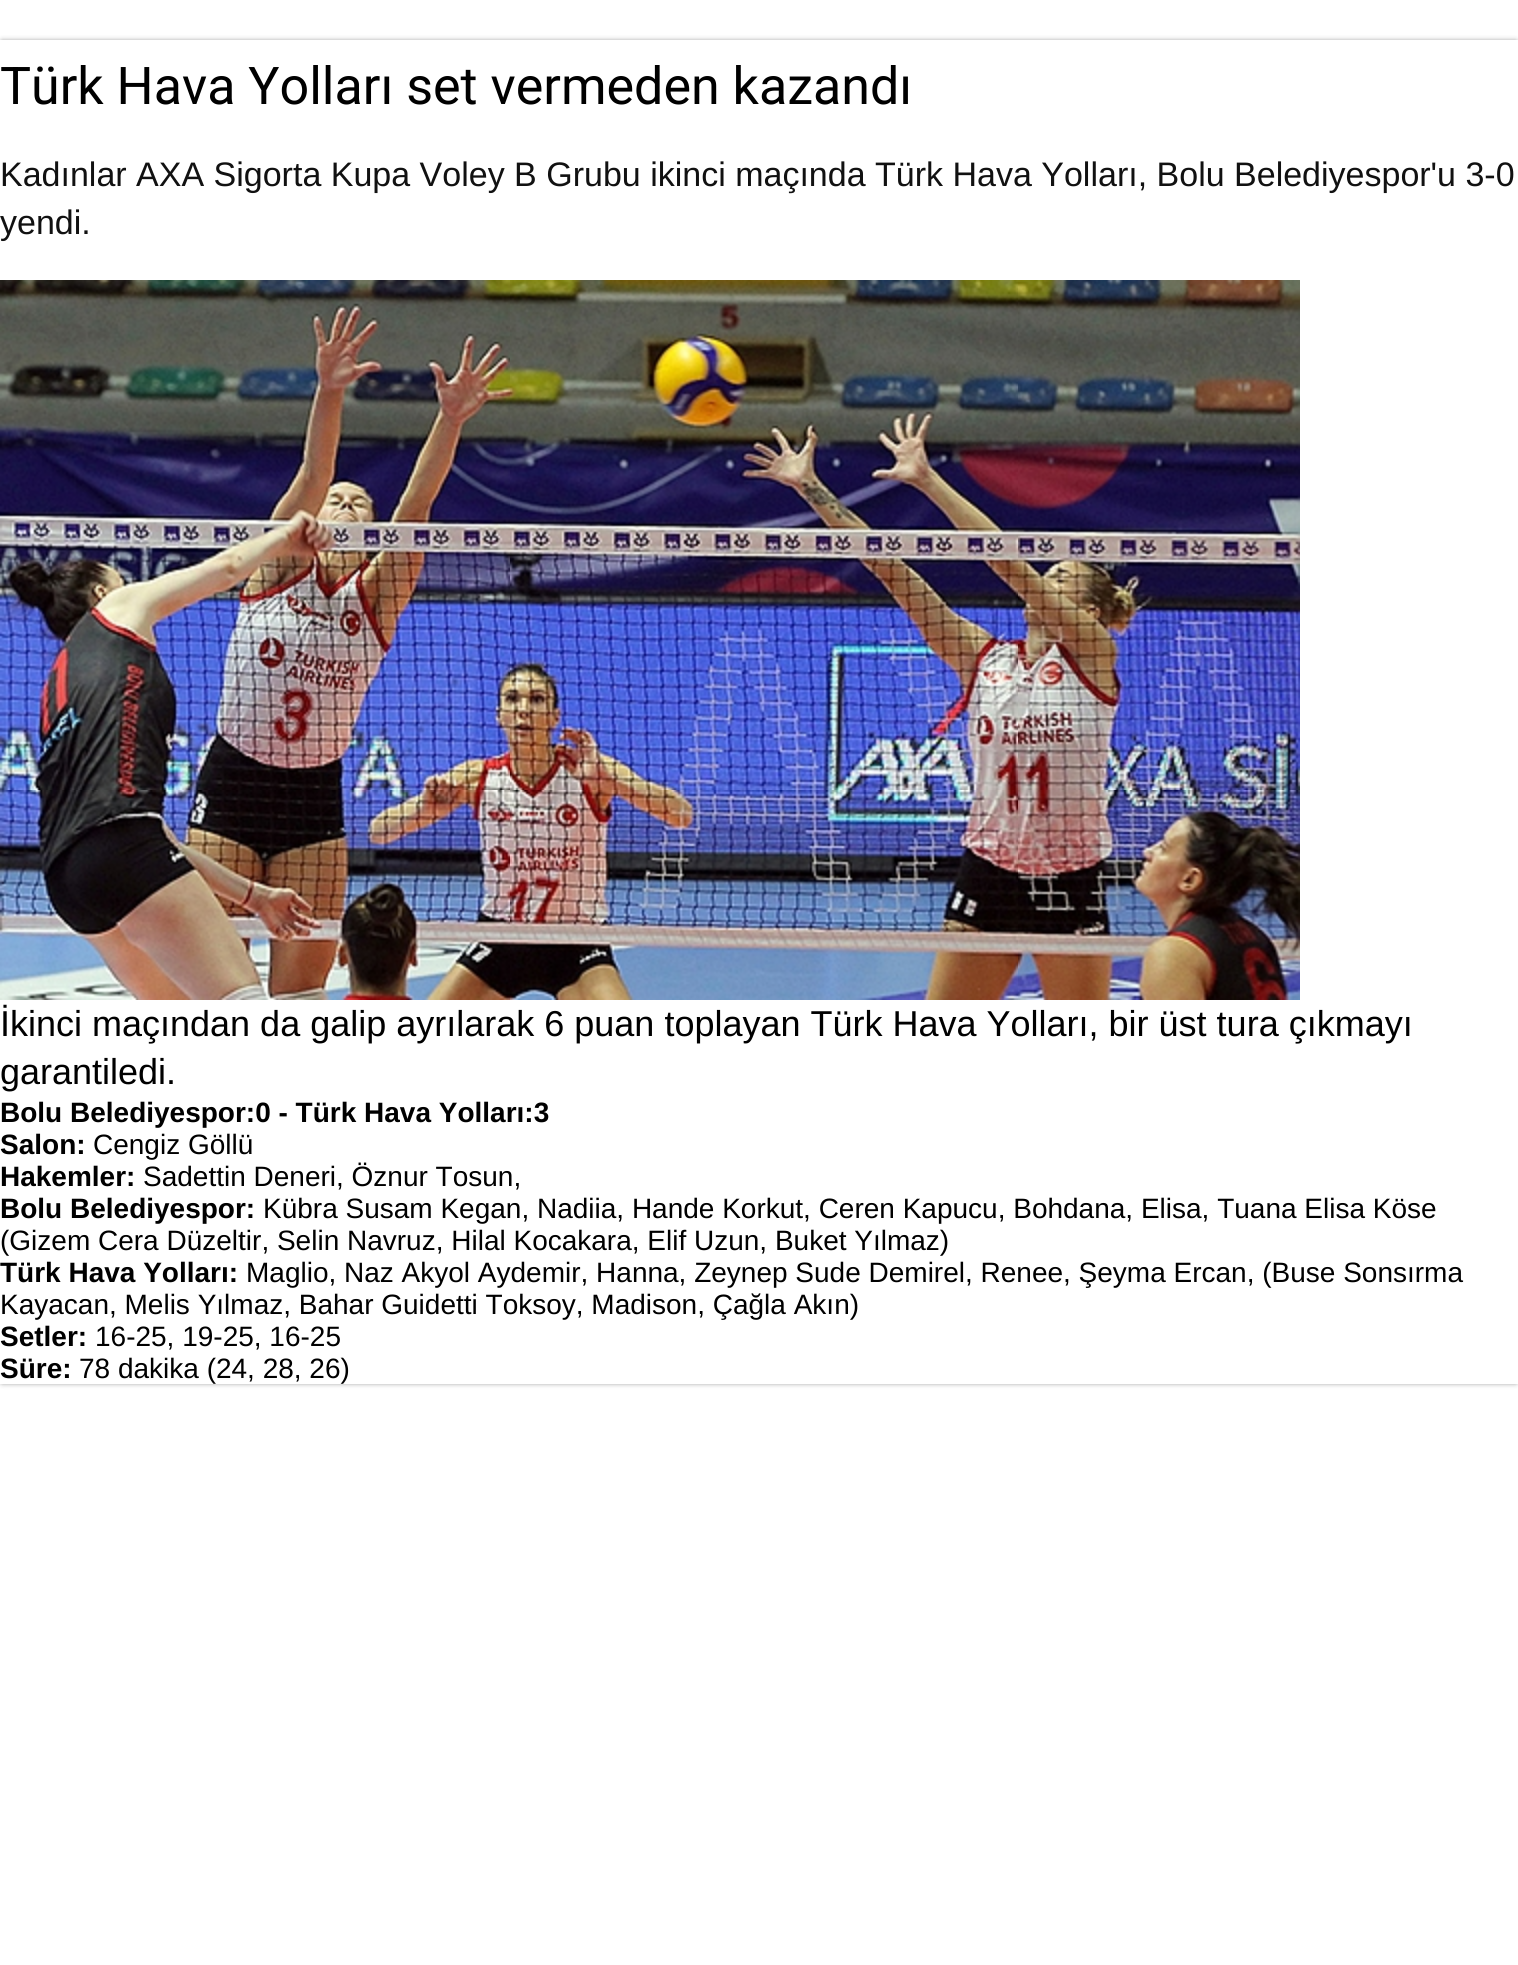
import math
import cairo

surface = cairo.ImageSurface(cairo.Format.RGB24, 1518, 1965)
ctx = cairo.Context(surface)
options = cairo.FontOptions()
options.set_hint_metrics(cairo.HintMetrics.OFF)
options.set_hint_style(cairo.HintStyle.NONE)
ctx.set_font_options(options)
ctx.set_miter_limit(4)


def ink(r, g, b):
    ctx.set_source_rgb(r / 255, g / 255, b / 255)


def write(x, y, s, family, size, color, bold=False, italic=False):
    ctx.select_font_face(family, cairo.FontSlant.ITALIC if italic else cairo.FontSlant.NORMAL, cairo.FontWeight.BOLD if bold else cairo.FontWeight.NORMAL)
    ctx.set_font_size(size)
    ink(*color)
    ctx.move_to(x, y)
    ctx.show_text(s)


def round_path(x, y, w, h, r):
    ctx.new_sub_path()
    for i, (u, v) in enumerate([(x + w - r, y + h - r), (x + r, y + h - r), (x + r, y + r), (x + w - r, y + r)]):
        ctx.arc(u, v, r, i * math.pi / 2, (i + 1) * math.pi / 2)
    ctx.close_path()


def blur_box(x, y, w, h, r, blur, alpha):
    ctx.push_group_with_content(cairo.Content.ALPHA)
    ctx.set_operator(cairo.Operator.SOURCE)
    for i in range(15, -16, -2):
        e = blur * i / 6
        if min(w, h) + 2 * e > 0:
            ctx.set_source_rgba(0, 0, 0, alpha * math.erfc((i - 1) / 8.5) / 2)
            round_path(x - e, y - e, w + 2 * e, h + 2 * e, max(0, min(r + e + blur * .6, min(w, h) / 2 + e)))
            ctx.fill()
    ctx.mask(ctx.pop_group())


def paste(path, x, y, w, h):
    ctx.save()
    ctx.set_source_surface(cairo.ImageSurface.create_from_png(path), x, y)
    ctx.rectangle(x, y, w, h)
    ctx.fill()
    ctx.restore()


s1 = dict(family="Roboto", size=52, color=(0, 0, 0))
s2 = dict(family="Liberation Sans", size=34, color=(17, 17, 17))
s3 = dict(family="Liberation Sans", size=36, color=(0, 0, 0))
s4 = dict(family="Liberation Sans", size=28, color=(0, 0, 0), bold=True)
s5 = dict(family="Liberation Sans", size=28, color=(0, 0, 0))

ink(255, 255, 255)
ctx.paint()
ctx.save()
ctx.set_fill_rule(cairo.FillRule.EVEN_ODD)
ctx.new_path()
ctx.move_to(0, 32)
ctx.line_to(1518, 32)
ctx.line_to(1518, 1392)
ctx.line_to(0, 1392)
ctx.close_path()
ctx.move_to(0, 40)
ctx.line_to(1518, 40)
ctx.line_to(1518, 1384)
ctx.line_to(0, 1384)
ctx.close_path()
ctx.clip()
ink(0, 0, 0)
blur_box(2, 42, 1514, 1340, 0, 3, 0.7)
ctx.restore()
write(0, 104, "Türk Hava Yolları set vermeden kazandı", **s1)
write(0, 186, "Kadınlar AXA Sigorta Kupa Voley B Grubu ikinci maçında Türk Hava Yolları, Bolu Belediyespor'u 3-0", **s2)
write(0, 234, "yendi.", **s2)
paste("pic1.png", 0, 280, 1300, 720)
write(0, 1036, "İkinci maçından da galip ayrılarak 6 puan toplayan Türk Hava Yolları, bir üst tura çıkmayı", **s3)
write(0, 1084, "garantiledi.", **s3)
write(0, 1122, "Bolu Belediyespor:0 - Türk Hava Yolları:3", **s4)
write(0, 1154, "Salon:", **s4)
write(93, 1154, "Cengiz Göllü", **s5)
write(0, 1186, "Hakemler:", **s4)
write(143, 1186, "Sadettin Deneri, Öznur Tosun,", **s5)
write(0, 1218, "Bolu Belediyespor:", **s4)
write(263, 1218, "Kübra Susam Kegan, Nadiia, Hande Korkut, Ceren Kapucu, Bohdana, Elisa, Tuana Elisa Köse", **s5)
write(0, 1250, "(Gizem Cera Düzeltir, Selin Navruz, Hilal Kocakara, Elif Uzun, Buket Yılmaz)", **s5)
write(0, 1282, "Türk Hava Yolları:", **s4)
write(246, 1282, "Maglio, Naz Akyol Aydemir, Hanna, Zeynep Sude Demirel, Renee, Şeyma Ercan, (Buse Sonsırma", **s5)
write(0, 1314, "Kayacan, Melis Yılmaz, Bahar Guidetti Toksoy, Madison, Çağla Akın)", **s5)
write(0, 1346, "Setler:", **s4)
write(95, 1346, "16-25, 19-25, 16-25", **s5)
write(0, 1378, "Süre:", **s4)
write(79, 1378, "78 dakika (24, 28, 26)", **s5)
surface.write_to_png("screenshot.png")
